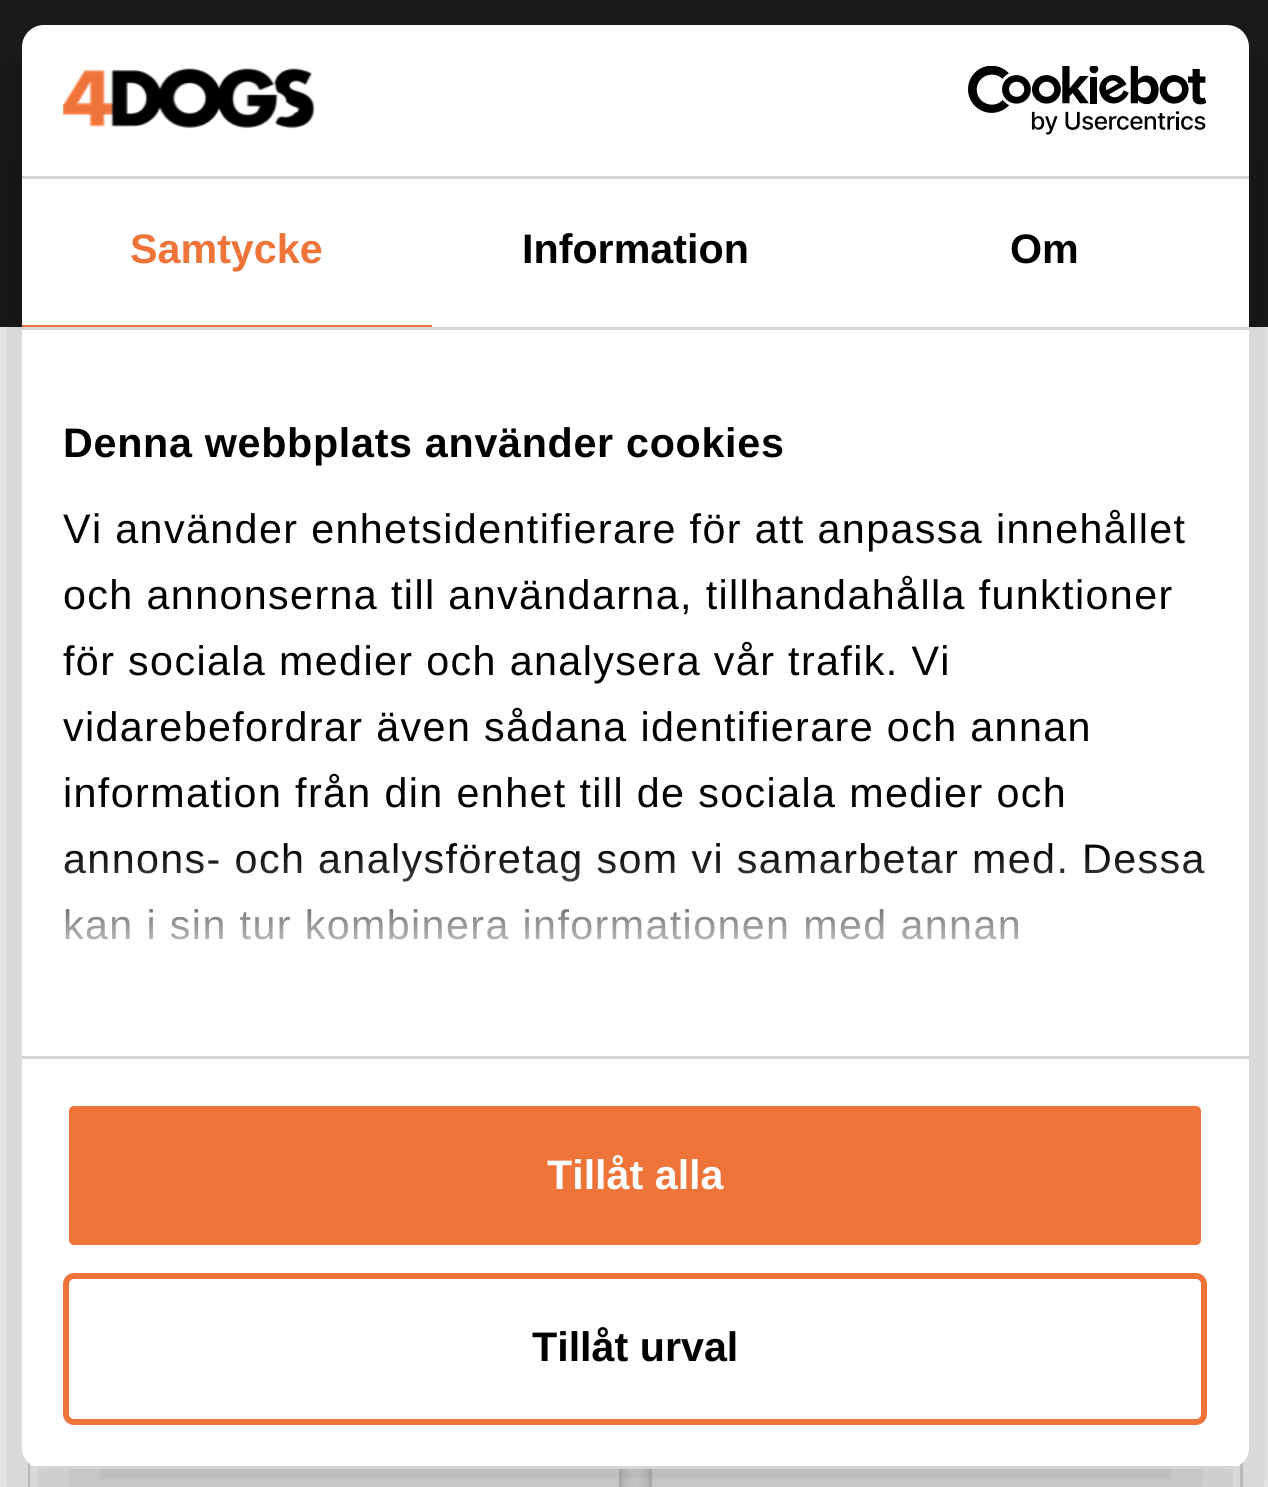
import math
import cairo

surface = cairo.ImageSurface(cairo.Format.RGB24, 1268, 1487)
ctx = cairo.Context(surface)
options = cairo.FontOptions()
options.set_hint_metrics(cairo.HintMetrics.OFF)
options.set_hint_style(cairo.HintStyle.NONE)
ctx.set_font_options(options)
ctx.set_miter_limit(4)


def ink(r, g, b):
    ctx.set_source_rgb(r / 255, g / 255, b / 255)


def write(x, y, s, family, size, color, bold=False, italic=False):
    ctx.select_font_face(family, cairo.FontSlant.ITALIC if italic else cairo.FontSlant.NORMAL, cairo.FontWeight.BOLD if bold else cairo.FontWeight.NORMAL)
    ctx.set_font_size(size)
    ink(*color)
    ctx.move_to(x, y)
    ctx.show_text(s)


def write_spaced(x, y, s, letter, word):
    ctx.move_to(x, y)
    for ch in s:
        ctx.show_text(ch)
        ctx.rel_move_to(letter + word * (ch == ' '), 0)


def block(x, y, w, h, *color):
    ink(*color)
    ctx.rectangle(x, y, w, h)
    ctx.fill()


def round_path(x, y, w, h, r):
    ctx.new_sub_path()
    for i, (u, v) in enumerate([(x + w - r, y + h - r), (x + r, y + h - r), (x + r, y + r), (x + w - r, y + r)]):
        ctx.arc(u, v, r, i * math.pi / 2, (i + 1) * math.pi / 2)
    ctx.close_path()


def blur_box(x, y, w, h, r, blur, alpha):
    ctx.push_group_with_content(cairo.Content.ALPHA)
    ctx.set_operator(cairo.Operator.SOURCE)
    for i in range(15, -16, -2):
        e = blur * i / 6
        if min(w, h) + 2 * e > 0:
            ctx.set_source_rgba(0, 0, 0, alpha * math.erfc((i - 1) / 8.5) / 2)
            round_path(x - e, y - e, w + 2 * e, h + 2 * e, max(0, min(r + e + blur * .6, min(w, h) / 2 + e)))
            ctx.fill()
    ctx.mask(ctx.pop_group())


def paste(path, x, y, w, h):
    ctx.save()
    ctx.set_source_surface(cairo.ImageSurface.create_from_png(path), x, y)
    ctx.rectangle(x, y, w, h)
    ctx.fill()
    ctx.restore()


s1 = dict(family="Liberation Sans", size=41.25, color=(238, 116, 58), bold=True)
s2 = dict(family="Liberation Sans", size=41.25, color=(0, 0, 0), bold=True)
s3 = dict(family="Liberation Sans", size=41.25, color=(255, 255, 255), bold=True)

ink(255, 255, 255)
ctx.paint()
block(0, 0, 1268, 327, 26, 26, 26)
ctx.save()
ctx.rectangle(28, 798, 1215, 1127)
ctx.clip()
ink(0, 0, 0)
blur_box(28, 809, 594, 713, 11, 8, 0.2)
ctx.restore()
ctx.rectangle(29.5, 799.5, 591, 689)
ink(217, 217, 217)
ctx.set_line_width(3)
ctx.stroke()
block(30, 1464, 589, 23, 255, 255, 255)
ctx.save()
ctx.rectangle(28, 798, 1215, 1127)
ctx.clip()
ink(0, 0, 0)
blur_box(649, 809, 594, 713, 11, 8, 0.2)
ctx.restore()
ctx.rectangle(650.5, 799.5, 591, 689)
ink(217, 217, 217)
ctx.stroke()
block(652, 1464, 588, 23, 255, 255, 255)
ctx.save()
ctx.set_fill_rule(cairo.FillRule.EVEN_ODD)
ctx.new_path()
ctx.move_to(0, 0)
ctx.line_to(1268, 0)
ctx.line_to(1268, 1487)
ctx.line_to(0, 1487)
ctx.close_path()
ctx.move_to(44, 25)
ctx.line_to(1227, 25)
ctx.curve_to(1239, 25, 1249, 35, 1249, 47)
ctx.line_to(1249, 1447)
ctx.curve_to(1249, 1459, 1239, 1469, 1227, 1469)
ctx.line_to(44, 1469)
ctx.curve_to(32, 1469, 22, 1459, 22, 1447)
ctx.line_to(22, 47)
ctx.curve_to(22, 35, 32, 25, 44, 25)
ctx.close_path()
ctx.clip()
ink(0, 0, 0)
blur_box(22, 113, 1227, 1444, 22, 93.5, 0.3)
ctx.restore()
round_path(22, 25, 1227, 1444, 22)
ctx.fill()
block(22, 176, 1227, 3, 214, 214, 214)
paste("pic1.png", 63, 68, 252, 61)
paste("pic2.png", 968, 66, 239, 69)
block(22, 327, 1227, 3, 214, 214, 214)
block(22, 325, 410, 2, 238, 116, 58)
write(130, 263, "Samtycke", **s1)
write(522, 263, "Information", **s2)
write(1010, 263, "Om", **s2)
block(22, 1056, 1227, 3, 214, 214, 214)
ink(0, 0, 0)
write_spaced(63, 457, "Denna webbplats använder cookies", 0.7, 0)
ctx.select_font_face("Liberation Sans")
write_spaced(63, 543, "Vi använder enhetsidentifierare för att anpassa innehållet", 1.38, 0)
write_spaced(63, 609, "och annonserna till användarna, tillhandahålla funktioner", 1.38, 0)
write_spaced(63, 675, "för sociala medier och analysera vår trafik. Vi", 1.38, 0)
write_spaced(63, 741, "vidarebefordrar även sådana identifierare och annan", 1.38, 0)
write_spaced(63, 807, "information från din enhet till de sociala medier och", 1.38, 0)
write_spaced(63, 873, "annons- och analysföretag som vi samarbetar med. Dessa", 1.38, 0)
write_spaced(63, 939, "kan i sin tur kombinera informationen med annan", 1.38, 0)
gradient = cairo.LinearGradient(617, 1055, 617, 848)
gradient.add_color_stop_rgba(0, 1, 1, 1, 1)
gradient.add_color_stop_rgba(0.5, 1, 1, 1, 0.8)
gradient.add_color_stop_rgba(1, 1, 1, 1, 0)
ctx.set_source(gradient)
ctx.rectangle(65, 851, 1140, 89)
ctx.fill()
ctx.save()
round_path(22, 25, 1227, 1444, 22)
ctx.clip()
block(33, 1466, 1205, 3, 214, 214, 214)
ctx.restore()
ink(238, 116, 58)
round_path(66, 1103, 1138, 145, 8)
ctx.fill_preserve()
ink(255, 255, 255)
ctx.set_line_width(6)
ctx.stroke()
write(547, 1189, "Tillåt alla", **s3)
round_path(66, 1276, 1138, 146, 8)
ink(238, 116, 58)
ctx.stroke()
write(532, 1361, "Tillåt urval", **s2)
surface.write_to_png("screenshot.png")
